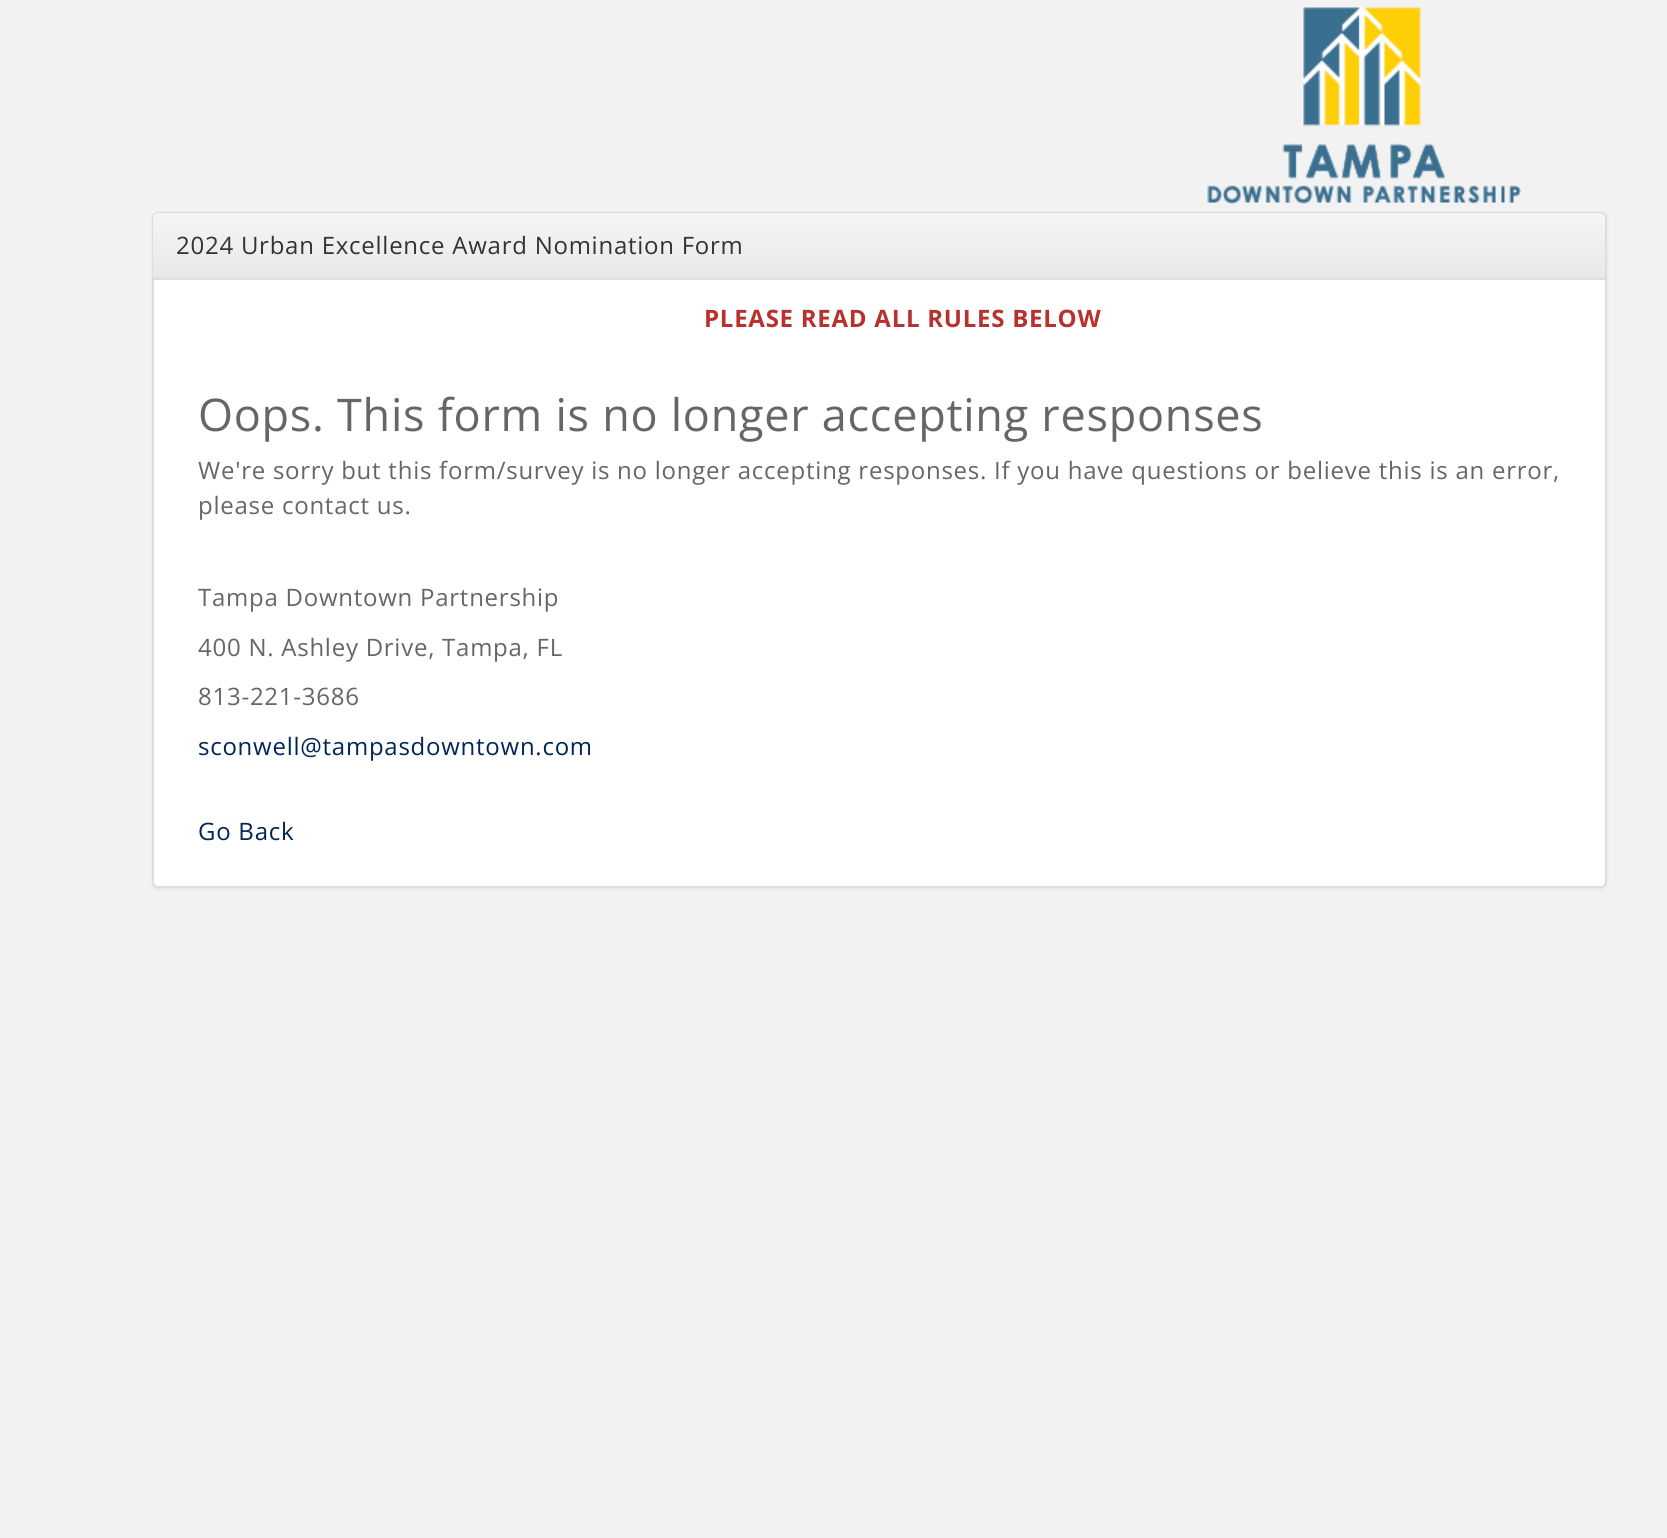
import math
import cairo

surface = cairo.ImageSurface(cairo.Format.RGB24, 1667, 1538)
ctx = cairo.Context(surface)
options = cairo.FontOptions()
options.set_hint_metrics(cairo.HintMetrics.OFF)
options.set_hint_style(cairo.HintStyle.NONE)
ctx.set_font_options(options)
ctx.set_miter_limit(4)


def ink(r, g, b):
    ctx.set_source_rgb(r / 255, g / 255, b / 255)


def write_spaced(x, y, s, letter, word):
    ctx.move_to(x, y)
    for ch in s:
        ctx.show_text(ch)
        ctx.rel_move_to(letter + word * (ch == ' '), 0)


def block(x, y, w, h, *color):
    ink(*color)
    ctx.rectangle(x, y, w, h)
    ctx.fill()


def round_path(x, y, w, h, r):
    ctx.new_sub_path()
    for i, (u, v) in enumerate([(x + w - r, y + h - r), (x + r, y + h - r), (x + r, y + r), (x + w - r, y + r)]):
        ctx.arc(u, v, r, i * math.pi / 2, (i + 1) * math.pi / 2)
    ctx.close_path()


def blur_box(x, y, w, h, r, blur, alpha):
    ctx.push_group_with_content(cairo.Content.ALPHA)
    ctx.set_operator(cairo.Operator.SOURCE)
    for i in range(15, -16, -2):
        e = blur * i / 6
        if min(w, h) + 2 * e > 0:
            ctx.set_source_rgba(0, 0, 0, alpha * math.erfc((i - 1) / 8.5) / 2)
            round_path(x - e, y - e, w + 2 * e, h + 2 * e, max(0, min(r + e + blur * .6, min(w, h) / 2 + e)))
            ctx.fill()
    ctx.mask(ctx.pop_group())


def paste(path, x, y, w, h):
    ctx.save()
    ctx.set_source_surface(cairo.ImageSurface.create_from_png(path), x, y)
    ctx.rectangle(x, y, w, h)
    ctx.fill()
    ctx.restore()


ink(242, 242, 242)
ctx.paint()
paste("pic1.png", 1207, 7, 314, 197)
ink(0, 0, 0)
blur_box(152, 213, 1455, 677, 6, 1.5, 0.05)
ink(255, 255, 255)
round_path(153, 213, 1453, 674, 5)
ctx.fill_preserve()
ink(221, 221, 221)
ctx.stroke()
gradient = cairo.LinearGradient(879, 213, 879, 278)
gradient.add_color_stop_rgba(0, 0.961, 0.961, 0.961, 1)
gradient.add_color_stop_rgba(1, 0.91, 0.91, 0.91, 1)
ctx.set_source(gradient)
ctx.new_path()
ctx.move_to(158, 213)
ctx.line_to(1600, 213)
ctx.curve_to(1603, 213, 1605, 215, 1605, 218)
ctx.line_to(1605, 278)
ctx.line_to(153, 278)
ctx.line_to(153, 218)
ctx.curve_to(153, 215, 155, 213, 158, 213)
ctx.close_path()
ctx.fill()
block(153, 278, 1452, 2, 221, 221, 221)
ctx.select_font_face("Open Sans")
ctx.set_font_size(24)
ink(51, 51, 51)
write_spaced(176, 254, "2024 Urban Excellence Award Nomination Form", 0.75, 0)
ctx.select_font_face("Open Sans", cairo.FontSlant.NORMAL, cairo.FontWeight.BOLD)
ink(184, 49, 47)
write_spaced(704, 327, "PLEASE READ ALL RULES BELOW", 0.75, 0)
ctx.select_font_face("Open Sans")
ctx.set_font_size(45)
ink(102, 102, 102)
write_spaced(198, 431, "Oops. This form is no longer accepting responses", 0.75, 0)
ctx.set_font_size(24)
write_spaced(198, 479, "We're sorry but this form/survey is no longer accepting responses. If you have questions or believe this is an error,", 0.75, 0)
write_spaced(198, 514, "please contact us.", 0.75, 0)
write_spaced(198, 606, "Tampa Downtown Partnership", 0.75, 0)
write_spaced(198, 656, "400 N. Ashley Drive, Tampa, FL", 0.75, 0)
write_spaced(198, 705, "813-221-3686", 0.75, 0)
ink(2, 37, 88)
write_spaced(198, 755, "sconwell@tampasdowntown.com", 0.75, 0)
write_spaced(198, 840, "Go Back", 0.75, 0)
surface.write_to_png("screenshot.png")
